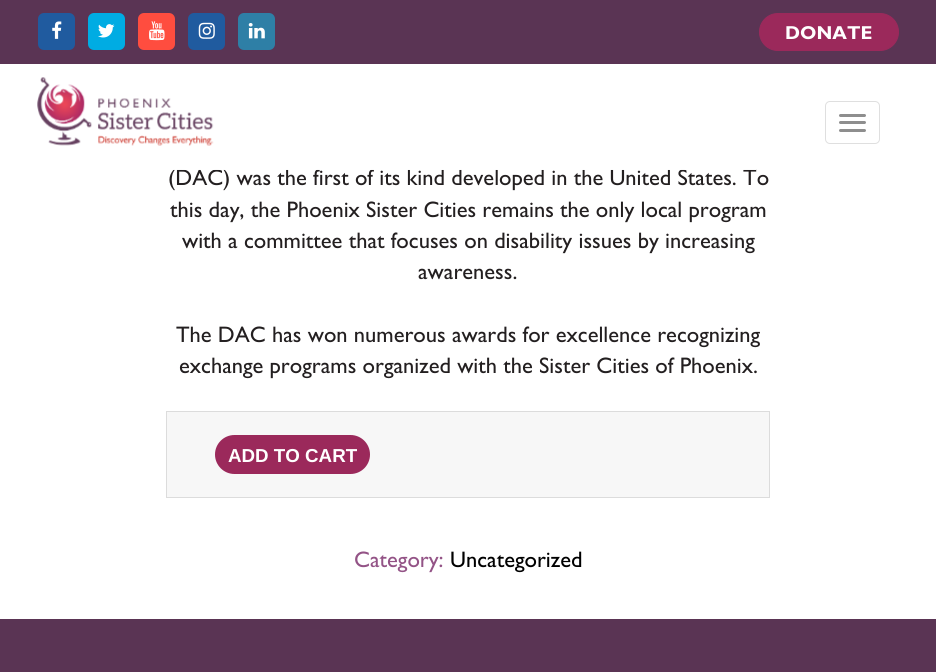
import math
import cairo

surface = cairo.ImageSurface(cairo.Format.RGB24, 936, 672)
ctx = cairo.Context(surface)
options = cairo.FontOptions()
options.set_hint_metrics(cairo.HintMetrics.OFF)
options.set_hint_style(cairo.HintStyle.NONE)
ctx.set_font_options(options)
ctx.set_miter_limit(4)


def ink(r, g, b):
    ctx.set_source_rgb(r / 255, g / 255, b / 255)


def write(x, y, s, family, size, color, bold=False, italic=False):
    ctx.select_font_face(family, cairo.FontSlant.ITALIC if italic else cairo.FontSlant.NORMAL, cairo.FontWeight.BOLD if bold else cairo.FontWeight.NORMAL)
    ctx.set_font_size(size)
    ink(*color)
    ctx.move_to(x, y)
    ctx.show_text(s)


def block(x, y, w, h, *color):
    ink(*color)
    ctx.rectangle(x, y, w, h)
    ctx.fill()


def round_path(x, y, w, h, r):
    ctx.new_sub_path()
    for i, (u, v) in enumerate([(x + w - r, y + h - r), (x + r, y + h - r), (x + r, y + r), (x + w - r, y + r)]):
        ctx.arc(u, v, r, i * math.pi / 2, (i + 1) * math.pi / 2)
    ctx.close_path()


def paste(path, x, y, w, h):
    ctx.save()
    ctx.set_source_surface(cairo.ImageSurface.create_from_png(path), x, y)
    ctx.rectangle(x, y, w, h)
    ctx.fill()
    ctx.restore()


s1 = dict(family="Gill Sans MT", size=18.75, color=(255, 255, 255), bold=True)
s2 = dict(family="Gill Sans MT", size=22.5, color=(35, 31, 32))
s3 = dict(family="Liberation Sans", size=18.75, color=(255, 255, 255), bold=True)
s4 = dict(family="Gill Sans MT", size=22.5, color=(147, 83, 134))
s5 = dict(family="Gill Sans MT", size=22.5, color=(0, 0, 0))

ink(255, 255, 255)
ctx.paint()
block(0, 0, 936, 64, 90, 52, 84)
ink(32, 91, 159)
round_path(38, 13, 37, 37, 6)
ctx.fill()
paste("pic1.png", 52, 21, 10, 18)
ink(0, 172, 227)
round_path(88, 13, 37, 37, 6)
ctx.fill()
paste("pic2.png", 98, 24, 17, 14)
ink(255, 77, 63)
round_path(138, 13, 37, 37, 6)
ctx.fill()
paste("pic3.png", 149, 21, 16, 20)
ink(32, 91, 159)
round_path(188, 13, 37, 37, 6)
ctx.fill()
paste("pic4.png", 198, 22, 17, 17)
ink(46, 127, 166)
round_path(238, 13, 37, 37, 6)
ctx.fill()
paste("pic5.png", 248, 23, 17, 16)
ink(155, 41, 91)
round_path(759.5, 13.5, 139, 37, 18.5)
ctx.fill_preserve()
ctx.set_line_width(1)
ctx.stroke()
write(785, 39, "DONATE", **s1)
write(168, 185, "(DAC) was the first of its kind developed in the United States. To", **s2)
ctx.set_source_rgba(1, 1, 1, 0.95)
ctx.rectangle(173, 169, 583, 1)
ctx.fill()
paste("pic6.png", 37, 77, 177, 69)
round_path(825.5, 101.5, 54, 42, 4.5)
ink(223, 223, 223)
ctx.stroke()
ink(142, 142, 142)
round_path(839, 114, 27, 3, 1.5)
ctx.fill()
round_path(839, 121, 27, 3, 1.5)
ctx.fill()
round_path(839, 129, 27, 3, 1.5)
ctx.fill()
write(170, 217, "this day, the Phoenix Sister Cities remains the only local program", **s2)
write(182, 248, "with a committee that focuses on disability issues by increasing", **s2)
write(418, 279, "awareness.", **s2)
write(176, 342, "The DAC has won numerous awards for excellence recognizing", **s2)
write(179, 373, "exchange programs organized with the Sister Cities of Phoenix.", **s2)
ink(247, 247, 247)
ctx.rectangle(166.5, 411.5, 603, 86)
ctx.fill_preserve()
ink(220, 220, 220)
ctx.stroke()
ink(155, 41, 91)
round_path(215, 435, 155, 39, 19.5)
ctx.fill()
write(228, 462, "ADD TO CART", **s3)
write(354, 567, "Category:", **s4)
write(450, 567, "Uncategorized", **s5)
block(0, 619, 936, 53, 90, 52, 84)
surface.write_to_png("screenshot.png")
